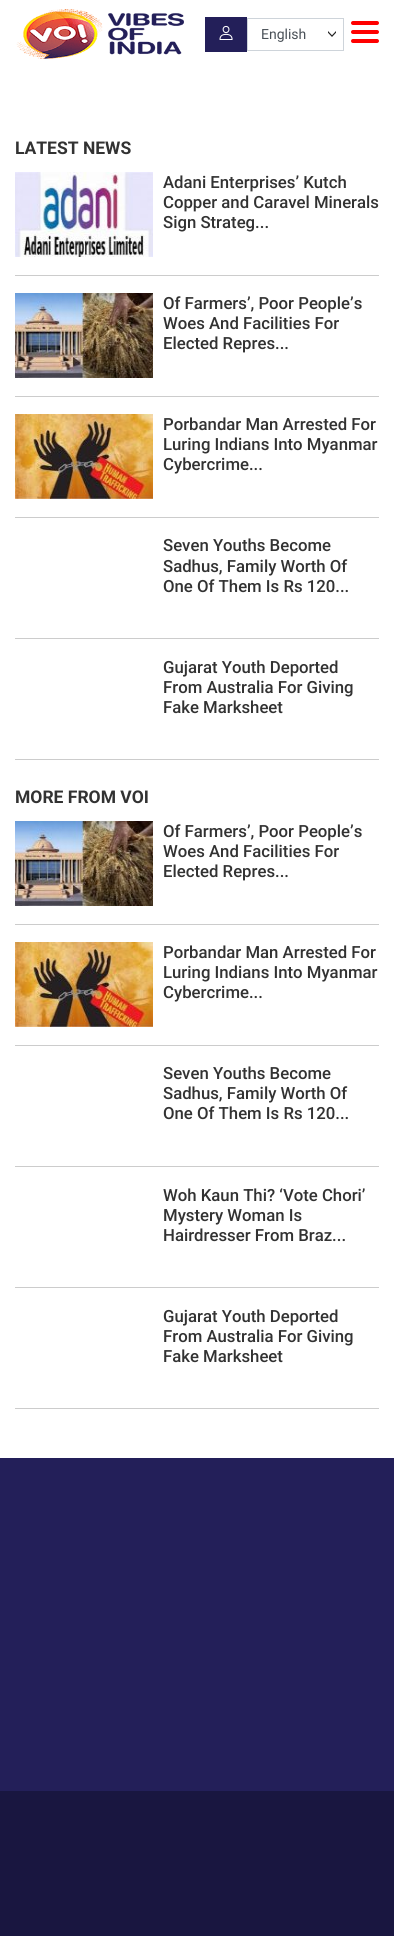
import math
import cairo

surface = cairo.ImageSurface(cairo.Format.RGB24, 394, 1936)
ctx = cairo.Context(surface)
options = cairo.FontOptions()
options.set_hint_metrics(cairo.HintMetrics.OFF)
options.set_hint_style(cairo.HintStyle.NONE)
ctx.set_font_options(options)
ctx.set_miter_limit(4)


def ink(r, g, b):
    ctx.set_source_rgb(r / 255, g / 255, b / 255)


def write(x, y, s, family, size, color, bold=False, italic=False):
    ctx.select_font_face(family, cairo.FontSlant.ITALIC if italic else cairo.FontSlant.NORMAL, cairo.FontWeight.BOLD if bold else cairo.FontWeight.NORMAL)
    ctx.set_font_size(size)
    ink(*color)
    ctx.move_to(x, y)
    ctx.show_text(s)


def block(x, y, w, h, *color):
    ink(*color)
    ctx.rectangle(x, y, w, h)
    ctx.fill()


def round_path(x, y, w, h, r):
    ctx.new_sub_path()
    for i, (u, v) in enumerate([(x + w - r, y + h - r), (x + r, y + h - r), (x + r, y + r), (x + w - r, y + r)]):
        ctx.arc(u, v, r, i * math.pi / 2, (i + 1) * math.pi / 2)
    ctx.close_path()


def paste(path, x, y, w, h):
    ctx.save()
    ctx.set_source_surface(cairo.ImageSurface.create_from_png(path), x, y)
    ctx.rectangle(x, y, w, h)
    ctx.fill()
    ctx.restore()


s1 = dict(family="Roboto", size=14, color=(73, 80, 87))
s2 = dict(family="Roboto", size=17.5, color=(50, 50, 50), bold=True)
s3 = dict(family="Roboto Medium", size=16.75, color=(50, 50, 50))

ink(255, 255, 255)
ctx.paint()
paste("pic1.png", 16, 9, 168, 50)
block(205, 17, 42, 35, 35, 31, 89)
paste("pic2.png", 219, 25, 14, 15)
paste("pic3.png", 328, 31, 8, 6)
ctx.rectangle(247.5, 18.5, 96, 32)
ink(206, 212, 218)
ctx.set_line_width(1)
ctx.stroke()
write(261, 39, "English", **s1)
ink(255, 0, 0)
round_path(351, 21, 28, 4, 2)
ctx.fill()
round_path(351, 30, 28, 4, 2)
ctx.fill()
round_path(351, 39, 28, 4, 2)
ctx.fill()
write(15, 154, "LATEST NEWS", **s2)
block(15, 275, 364, 1, 204, 204, 204)
paste("pic4.png", 15, 172, 138, 85)
write(163, 188, "Adani Enterprises’ Kutch", **s3)
write(163, 208, "Copper and Caravel Minerals", **s3)
write(163, 228, "Sign Strateg...", **s3)
block(15, 396, 364, 1, 204, 204, 204)
paste("pic5.png", 15, 293, 138, 85)
write(163, 309, "Of Farmers’, Poor People’s", **s3)
write(163, 329, "Woes And Facilities For", **s3)
write(163, 349, "Elected Repres...", **s3)
block(15, 517, 364, 1, 204, 204, 204)
paste("pic6.png", 15, 414, 138, 85)
write(163, 430, "Porbandar Man Arrested For", **s3)
write(163, 450, "Luring Indians Into Myanmar", **s3)
write(163, 470, "Cybercrime...", **s3)
block(15, 638, 364, 1, 204, 204, 204)
write(163, 551, "Seven Youths Become", **s3)
write(163, 572, "Sadhus, Family Worth Of", **s3)
write(163, 592, "One Of Them Is Rs 120...", **s3)
block(15, 759, 364, 1, 204, 204, 204)
write(163, 673, "Gujarat Youth Deported", **s3)
write(163, 693, "From Australia For Giving", **s3)
write(163, 713, "Fake Marksheet", **s3)
write(15, 803, "MORE FROM VOI", **s2)
block(15, 924, 364, 1, 204, 204, 204)
paste("pic5.png", 15, 821, 138, 85)
write(163, 837, "Of Farmers’, Poor People’s", **s3)
write(163, 857, "Woes And Facilities For", **s3)
write(163, 877, "Elected Repres...", **s3)
block(15, 1045, 364, 1, 204, 204, 204)
paste("pic6.png", 15, 942, 138, 85)
write(163, 958, "Porbandar Man Arrested For", **s3)
write(163, 978, "Luring Indians Into Myanmar", **s3)
write(163, 998, "Cybercrime...", **s3)
block(15, 1166, 364, 1, 204, 204, 204)
write(163, 1079, "Seven Youths Become", **s3)
write(163, 1099, "Sadhus, Family Worth Of", **s3)
write(163, 1119, "One Of Them Is Rs 120...", **s3)
block(15, 1287, 364, 1, 204, 204, 204)
write(163, 1201, "Woh Kaun Thi? ‘Vote Chori’", **s3)
write(163, 1221, "Mystery Woman Is", **s3)
write(163, 1241, "Hairdresser From Braz...", **s3)
block(15, 1408, 364, 1, 204, 204, 204)
write(163, 1322, "Gujarat Youth Deported", **s3)
write(163, 1342, "From Australia For Giving", **s3)
write(163, 1362, "Fake Marksheet", **s3)
block(0, 1458, 394, 333, 35, 31, 89)
block(0, 1791, 394, 145, 25, 22, 64)
surface.write_to_png("screenshot.png")
